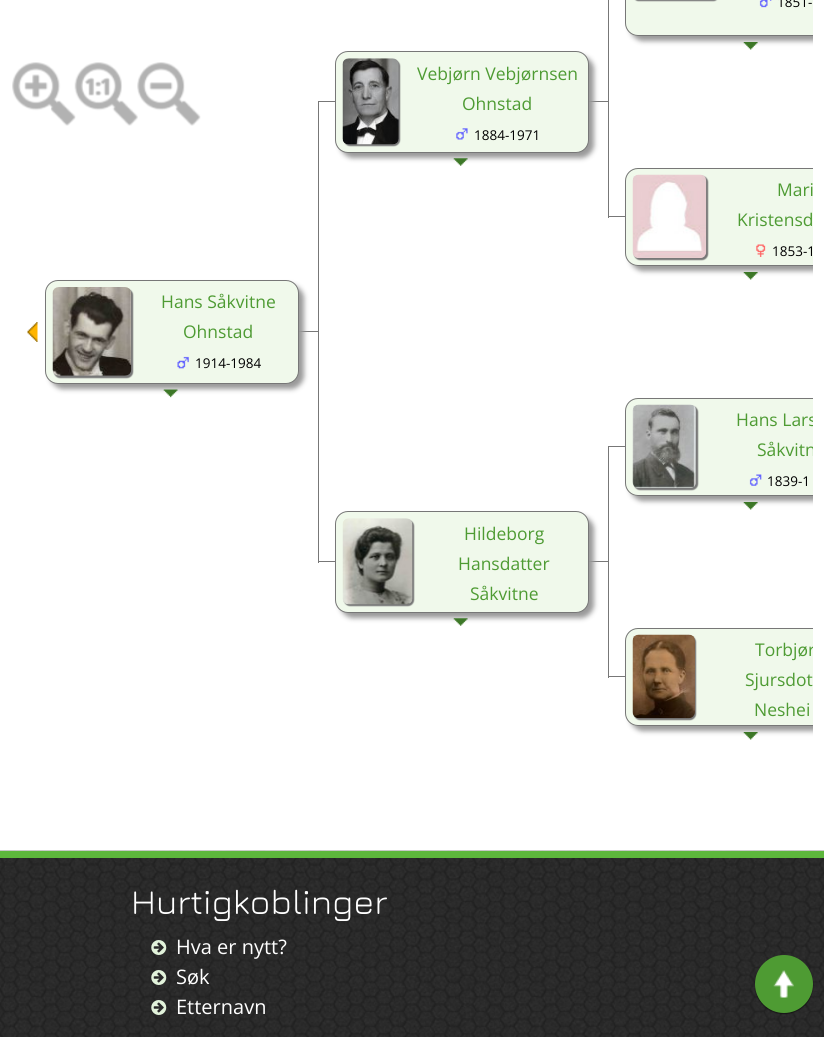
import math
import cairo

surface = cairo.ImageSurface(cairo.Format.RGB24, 824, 1037)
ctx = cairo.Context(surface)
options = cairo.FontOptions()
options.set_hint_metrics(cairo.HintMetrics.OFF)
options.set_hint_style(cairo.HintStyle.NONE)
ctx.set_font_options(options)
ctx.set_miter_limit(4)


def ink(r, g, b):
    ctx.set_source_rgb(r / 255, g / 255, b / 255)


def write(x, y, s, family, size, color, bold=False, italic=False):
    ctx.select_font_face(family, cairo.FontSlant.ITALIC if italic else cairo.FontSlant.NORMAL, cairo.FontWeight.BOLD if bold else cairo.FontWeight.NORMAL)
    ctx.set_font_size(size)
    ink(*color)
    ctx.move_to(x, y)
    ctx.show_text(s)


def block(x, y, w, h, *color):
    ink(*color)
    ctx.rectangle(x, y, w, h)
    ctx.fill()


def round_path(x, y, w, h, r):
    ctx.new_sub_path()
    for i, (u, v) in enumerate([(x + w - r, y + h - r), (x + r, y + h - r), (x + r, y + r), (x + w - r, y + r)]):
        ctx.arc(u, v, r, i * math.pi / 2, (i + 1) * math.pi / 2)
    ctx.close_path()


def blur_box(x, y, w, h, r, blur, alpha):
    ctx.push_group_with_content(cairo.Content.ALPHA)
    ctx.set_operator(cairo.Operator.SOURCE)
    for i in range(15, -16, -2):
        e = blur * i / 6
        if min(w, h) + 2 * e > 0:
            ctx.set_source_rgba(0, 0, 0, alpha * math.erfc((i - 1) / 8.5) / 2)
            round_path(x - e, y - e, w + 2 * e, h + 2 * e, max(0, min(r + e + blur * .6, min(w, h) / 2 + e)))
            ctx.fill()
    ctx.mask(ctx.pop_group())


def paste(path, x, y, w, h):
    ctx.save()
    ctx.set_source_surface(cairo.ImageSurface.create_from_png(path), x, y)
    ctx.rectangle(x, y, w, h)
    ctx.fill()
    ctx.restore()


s1 = dict(family="Open Sans", size=13.5, color=(0, 0, 0))
s2 = dict(family="Open Sans", size=17.5, color=(78, 155, 51))
s3 = dict(family="Jura Light", size=35, color=(255, 255, 255))
s4 = dict(family="Open Sans", size=20, color=(255, 255, 255))

ink(255, 255, 255)
ctx.paint()
paste("pic1.png", 12, 62, 64, 64)
paste("pic2.png", 74, 62, 64, 64)
paste("pic3.png", 137, 62, 64, 64)
block(608, 0, 1, 103, 119, 119, 119)
ctx.save()
ctx.rectangle(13, 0, 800, 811)
ctx.clip()
ink(153, 153, 153)
blur_box(630, -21, 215, 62, 13, 2.5, 1)
ctx.restore()
ink(240, 249, 235)
ctx.new_path()
ctx.move_to(638, -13)
ctx.line_to(813, -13)
ctx.line_to(813, 36)
ctx.line_to(638, 36)
ctx.curve_to(631, 36, 625, 30, 625, 23)
ctx.line_to(625, 0)
ctx.curve_to(625, -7, 631, -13, 638, -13)
ctx.close_path()
ctx.fill()
ctx.save()
ctx.rectangle(13, 0, 800, 811)
ctx.clip()
round_path(625.5, -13.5, 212, 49, 12.5)
ink(119, 119, 119)
ctx.set_line_width(1)
ctx.stroke()
ctx.restore()
ink(119, 119, 119)
blur_box(634, -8, 84, 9, 6, 0.5, 1)
paste("pic4.png", 759, 0, 13, 8)
write(777, 7, "1851-", **s1)
paste("pic5.png", 743, 42, 15, 8)
block(318, 101, 21, 1, 119, 119, 119)
block(588, 101, 20, 1, 119, 119, 119)
ink(153, 153, 153)
blur_box(340, 56, 254, 102, 13, 2.5, 1)
ink(240, 249, 235)
round_path(335.5, 51.5, 253, 101, 12.5)
ctx.fill_preserve()
ink(119, 119, 119)
ctx.set_line_width(1)
ctx.stroke()
ink(119, 119, 119)
blur_box(344, 60, 56, 86, 6, 0.5, 1)
paste("pic6.png", 342, 58, 57, 87)
write(417, 80, "Vebjørn Vebjørnsen", **s2)
write(462, 110, "Ohnstad", **s2)
paste("pic7.png", 456, 128, 12, 12)
write(474, 140, "1884-1971", **s1)
paste("pic8.png", 453, 158, 15, 8)
block(318, 101, 1, 232, 119, 119, 119)
block(608, 216, 21, 1, 119, 119, 119)
block(608, 103, 1, 115, 119, 119, 119)
ctx.save()
ctx.rectangle(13, 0, 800, 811)
ctx.clip()
ink(153, 153, 153)
blur_box(630, 173, 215, 98, 13, 2.5, 1)
ctx.restore()
ink(240, 249, 235)
ctx.new_path()
ctx.move_to(638, 168)
ctx.line_to(813, 168)
ctx.line_to(813, 266)
ctx.line_to(638, 266)
ctx.curve_to(631, 266, 625, 260, 625, 253)
ctx.line_to(625, 181)
ctx.curve_to(625, 174, 631, 168, 638, 168)
ctx.close_path()
ctx.fill()
ctx.save()
ctx.rectangle(13, 0, 800, 811)
ctx.clip()
round_path(625.5, 168.5, 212, 97, 12.5)
ink(119, 119, 119)
ctx.stroke()
ctx.restore()
ink(119, 119, 119)
blur_box(634, 176, 74, 84, 6, 0.5, 1)
paste("pic9.png", 632, 174, 75, 84)
write(777, 196, "Mari", **s2)
write(737, 226, "Kristensd", **s2)
paste("pic10.png", 756, 244, 10, 13)
write(772, 256, "1853-1", **s1)
paste("pic5.png", 743, 272, 15, 8)
paste("pic11.png", 27, 322, 11, 20)
block(298, 331, 20, 1, 119, 119, 119)
ink(153, 153, 153)
blur_box(50, 285, 254, 104, 13, 2.5, 1)
ink(240, 249, 235)
round_path(45.5, 280.5, 253, 103, 12.5)
ctx.fill_preserve()
ink(119, 119, 119)
ctx.stroke()
ink(119, 119, 119)
blur_box(54, 289, 79, 89, 6, 0.5, 1)
paste("pic12.png", 52, 287, 80, 89)
write(161, 308, "Hans Såkvitne", **s2)
write(183, 338, "Ohnstad", **s2)
paste("pic13.png", 177, 356, 12, 13)
write(195, 368, "1914-1984", **s1)
paste("pic14.png", 163, 389, 15, 9)
block(318, 561, 21, 1, 119, 119, 119)
block(318, 333, 1, 230, 119, 119, 119)
block(608, 446, 21, 1, 119, 119, 119)
ctx.save()
ctx.rectangle(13, 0, 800, 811)
ctx.clip()
ink(153, 153, 153)
blur_box(630, 403, 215, 98, 13, 2.5, 1)
ctx.restore()
ink(240, 249, 235)
ctx.new_path()
ctx.move_to(638, 398)
ctx.line_to(813, 398)
ctx.line_to(813, 496)
ctx.line_to(638, 496)
ctx.curve_to(631, 496, 625, 490, 625, 483)
ctx.line_to(625, 411)
ctx.curve_to(625, 404, 631, 398, 638, 398)
ctx.close_path()
ctx.fill()
ctx.save()
ctx.rectangle(13, 0, 800, 811)
ctx.clip()
round_path(625.5, 398.5, 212, 97, 12.5)
ink(119, 119, 119)
ctx.stroke()
ctx.restore()
ink(119, 119, 119)
blur_box(634, 406, 64, 84, 6, 0.5, 1)
paste("pic15.png", 632, 404, 64, 84)
ctx.save()
ctx.rectangle(13, 0, 800, 811)
ctx.clip()
write(736, 426, "Hans Lars", **s2)
write(757, 456, "Såkvitn", **s2)
ctx.restore()
paste("pic16.png", 749, 474, 13, 12)
write(767, 486, "1839-1", **s1)
paste("pic5.png", 743, 502, 15, 8)
block(588, 561, 20, 1, 119, 119, 119)
ink(153, 153, 153)
blur_box(340, 516, 254, 102, 13, 2.5, 1)
ink(240, 249, 235)
round_path(335.5, 511.5, 253, 101, 12.5)
ctx.fill_preserve()
ink(119, 119, 119)
ctx.stroke()
ink(119, 119, 119)
blur_box(344, 520, 70, 86, 6, 0.5, 1)
paste("pic17.png", 342, 518, 71, 87)
write(464, 540, "Hildeborg", **s2)
write(458, 570, "Hansdatter", **s2)
write(470, 600, "Såkvitne", **s2)
paste("pic8.png", 453, 618, 15, 8)
block(608, 446, 1, 117, 119, 119, 119)
block(608, 676, 21, 1, 119, 119, 119)
block(608, 563, 1, 115, 119, 119, 119)
ctx.save()
ctx.rectangle(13, 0, 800, 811)
ctx.clip()
ink(153, 153, 153)
blur_box(630, 633, 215, 98, 13, 2.5, 1)
ctx.restore()
ink(240, 249, 235)
ctx.new_path()
ctx.move_to(638, 628)
ctx.line_to(813, 628)
ctx.line_to(813, 726)
ctx.line_to(638, 726)
ctx.curve_to(631, 726, 625, 720, 625, 713)
ctx.line_to(625, 641)
ctx.curve_to(625, 634, 631, 628, 638, 628)
ctx.close_path()
ctx.fill()
ctx.save()
ctx.rectangle(13, 0, 800, 811)
ctx.clip()
round_path(625.5, 628.5, 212, 97, 12.5)
ink(119, 119, 119)
ctx.stroke()
ctx.restore()
ink(119, 119, 119)
blur_box(634, 636, 62, 84, 6, 0.5, 1)
paste("pic18.png", 632, 634, 63, 85)
ctx.save()
ctx.rectangle(13, 0, 800, 811)
ctx.clip()
write(755, 656, "Torbjør", **s2)
ctx.restore()
write(745, 686, "Sjursdot", **s2)
write(754, 716, "Neshei", **s2)
paste("pic5.png", 743, 732, 15, 8)
paste("pic19.png", 0, 850, 824, 187)
block(0, 851, 824, 7, 93, 183, 60)
write(131, 914, "Hurtigkoblinger", **s3)
paste("pic20.png", 151, 940, 16, 15)
write(176, 954, "Hva er nytt?", **s4)
paste("pic21.png", 151, 970, 16, 15)
write(176, 984, "Søk", **s4)
paste("pic22.png", 151, 1000, 16, 15)
write(176, 1014, "Etternavn", **s4)
ink(0, 0, 0)
blur_box(755, 956, 58, 58, 29, 0.5, 0.5)
ink(78, 155, 51)
ctx.arc(784, 984, 29, 0, 2 * math.pi)
ctx.fill()
paste("pic23.png", 773, 970, 21, 28)
surface.write_to_png("screenshot.png")
